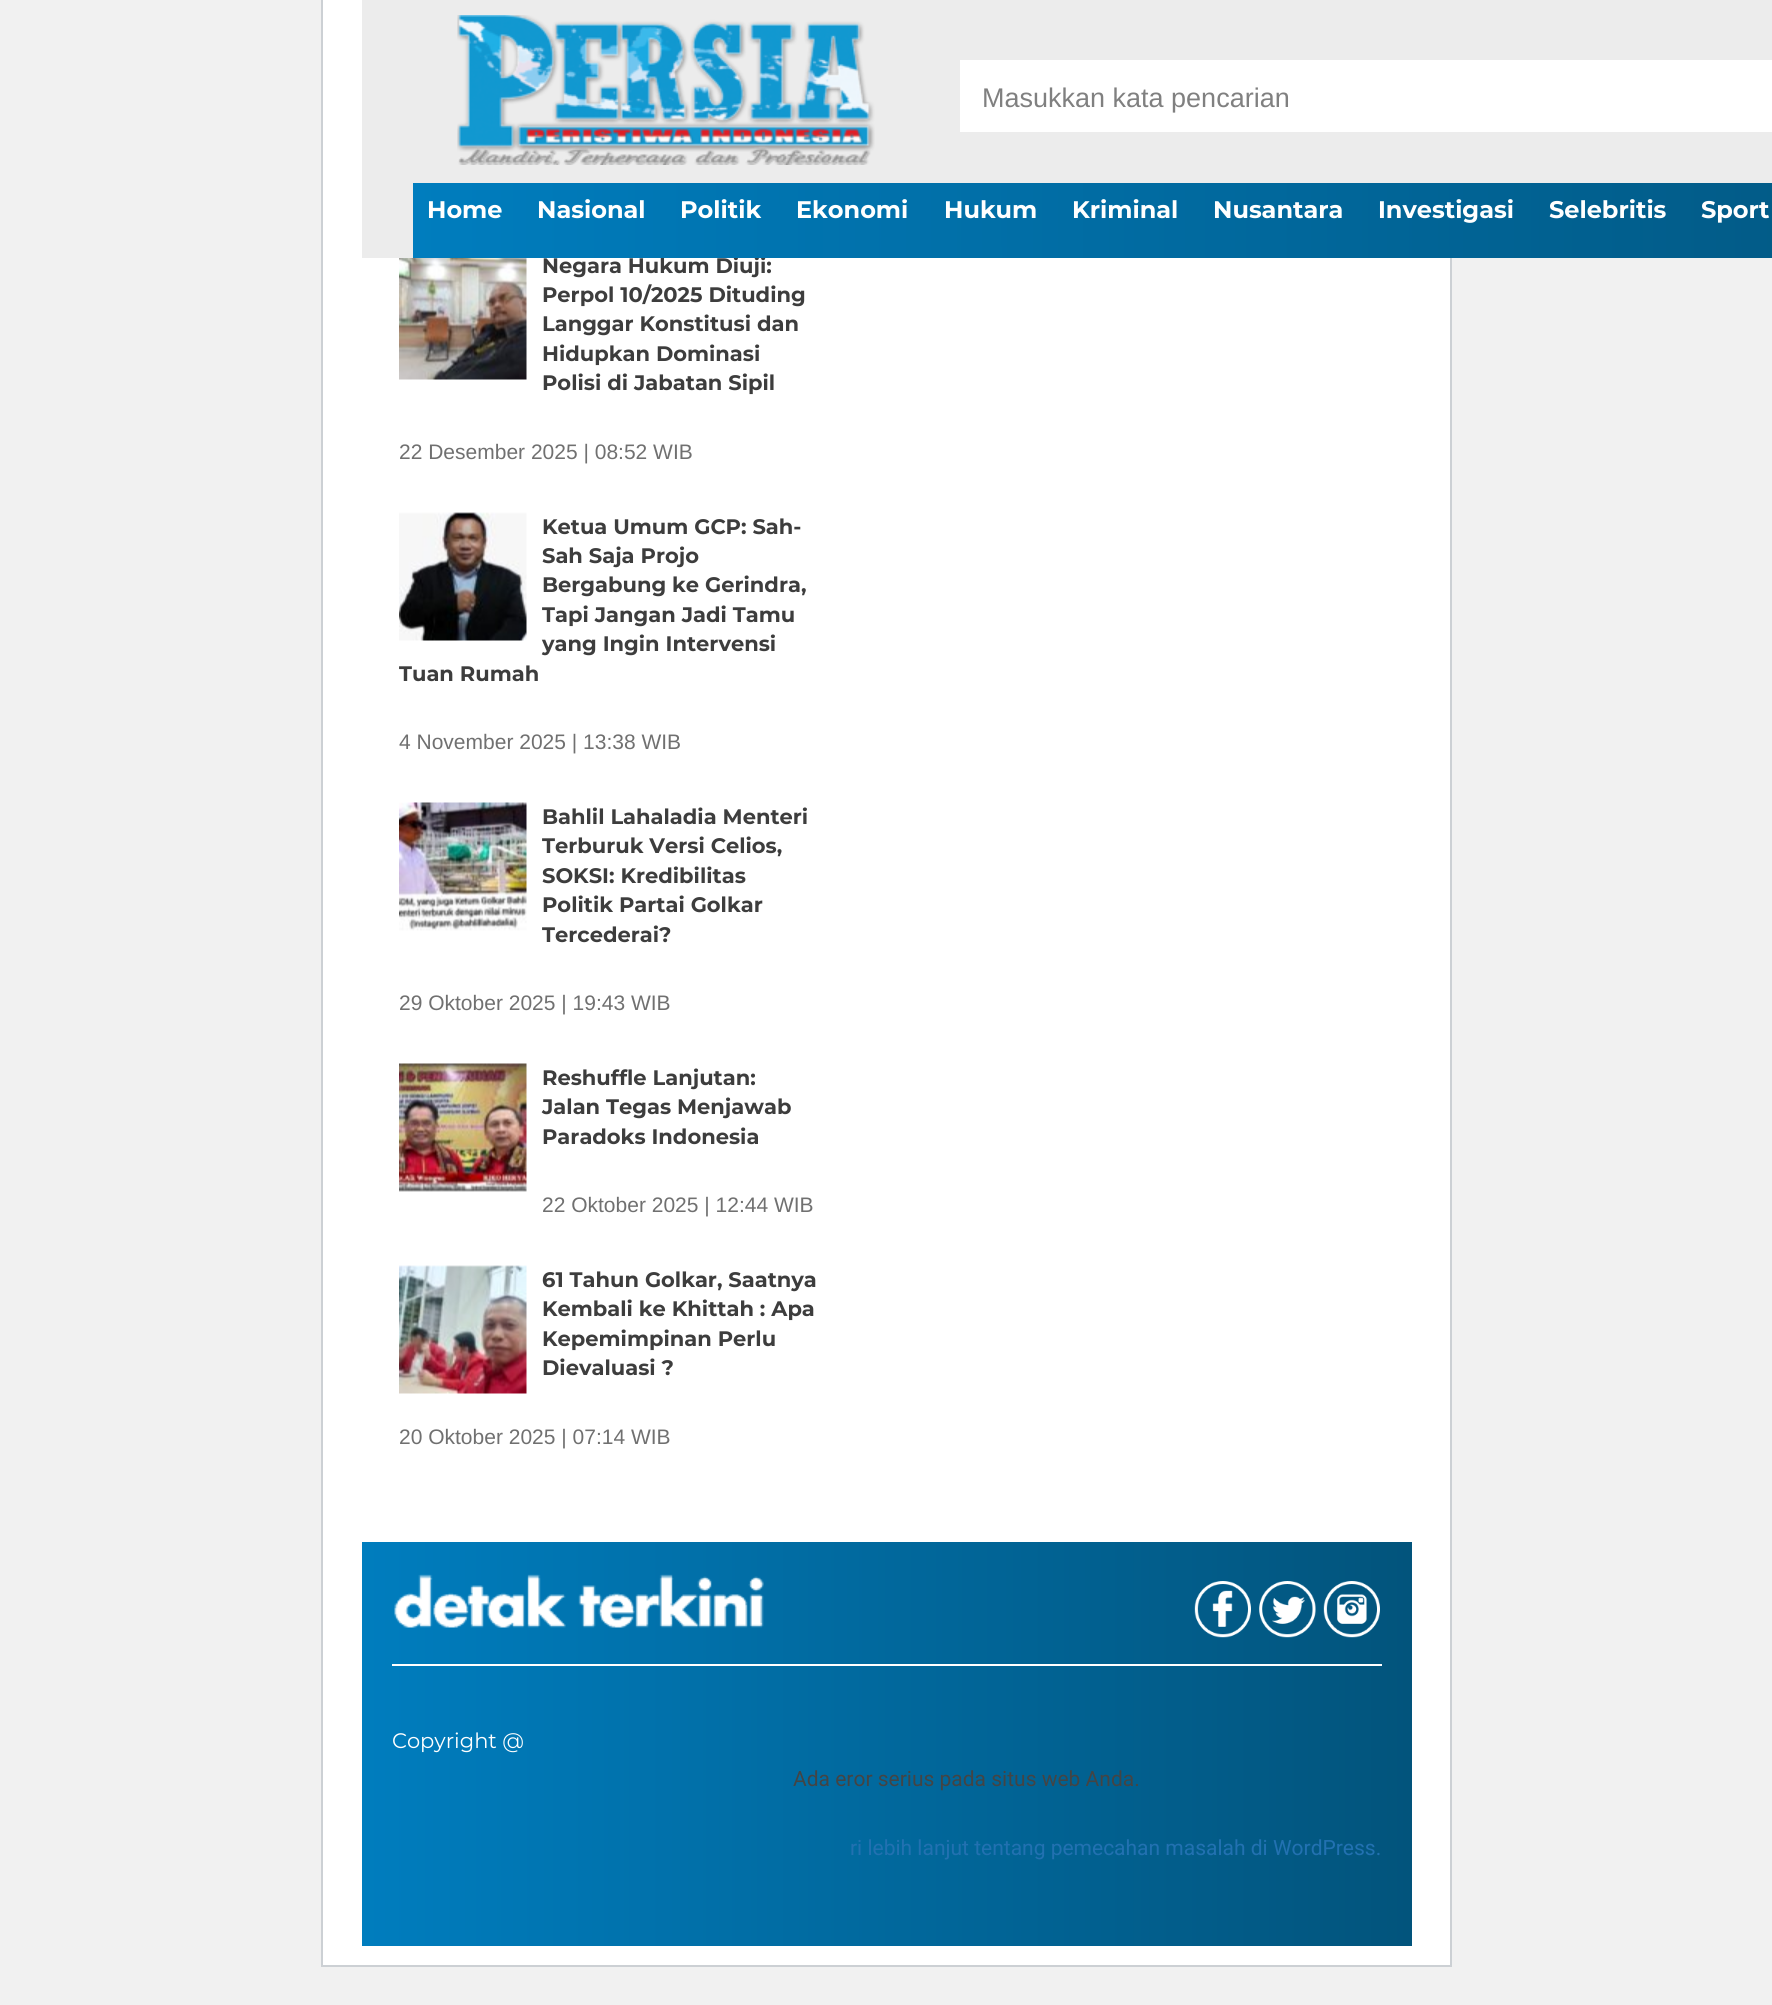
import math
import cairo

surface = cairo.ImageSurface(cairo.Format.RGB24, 1772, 2005)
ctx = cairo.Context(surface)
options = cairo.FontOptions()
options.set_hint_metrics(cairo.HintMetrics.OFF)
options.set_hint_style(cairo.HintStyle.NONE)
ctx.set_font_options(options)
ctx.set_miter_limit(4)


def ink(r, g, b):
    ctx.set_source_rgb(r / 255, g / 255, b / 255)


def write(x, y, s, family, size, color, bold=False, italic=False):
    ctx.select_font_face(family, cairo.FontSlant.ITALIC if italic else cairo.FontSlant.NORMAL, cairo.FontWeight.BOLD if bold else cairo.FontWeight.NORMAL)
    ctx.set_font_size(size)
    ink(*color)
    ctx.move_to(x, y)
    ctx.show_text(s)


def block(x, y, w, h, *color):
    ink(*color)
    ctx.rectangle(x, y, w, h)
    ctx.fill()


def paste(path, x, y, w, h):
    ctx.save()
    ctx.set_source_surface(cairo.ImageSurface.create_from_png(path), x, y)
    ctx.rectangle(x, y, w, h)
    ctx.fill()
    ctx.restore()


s1 = dict(family="Montserrat", size=21, color=(61, 61, 61), bold=True)
s2 = dict(family="Liberation Sans", size=27, color=(128, 128, 128))
s3 = dict(family="Montserrat", size=24, color=(255, 255, 255), bold=True)
s4 = dict(family="Liberation Sans", size=21, color=(112, 112, 112))
s5 = dict(family="Montserrat", size=21, color=(255, 255, 255))
s6 = dict(family="Roboto", size=21, color=(68, 68, 68))
s7 = dict(family="Roboto", size=21, color=(34, 113, 177))

ink(241, 241, 241)
ctx.paint()
ink(255, 255, 255)
ctx.rectangle(322, -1, 1129, 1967)
ctx.fill_preserve()
ink(204, 208, 212)
ctx.stroke()
write(542, 273, "Negara Hukum Diuji:", **s1)
block(362, 0, 1410, 258, 236, 236, 236)
paste("pic1.png", 457, 15, 418, 150)
block(960, 60, 812, 72, 255, 255, 255)
write(982, 107, "Masukkan kata pencarian", **s2)
gradient = cairo.LinearGradient(413, 221, 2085, 220)
gradient.add_color_stop_rgba(0, 0, 0.49, 0.745, 1)
gradient.add_color_stop_rgba(1, 0.008, 0.329, 0.486, 1)
ctx.set_source(gradient)
ctx.rectangle(413, 183, 1359, 75)
ctx.fill()
write(427, 218, "Home", **s3)
write(537, 218, "Nasional", **s3)
write(680, 218, "Politik", **s3)
write(796, 218, "Ekonomi", **s3)
write(944, 218, "Hukum", **s3)
write(1072, 218, "Kriminal", **s3)
write(1213, 218, "Nusantara", **s3)
write(1378, 218, "Investigasi", **s3)
write(1549, 218, "Selebritis", **s3)
write(1701, 218, "Sport", **s3)
paste("pic2.png", 399, 258, 128, 122)
write(542, 302, "Perpol 10/2025 Dituding", **s1)
write(542, 331, "Langgar Konstitusi dan", **s1)
write(542, 361, "Hidupkan Dominasi", **s1)
write(542, 390, "Polisi di Jabatan Sipil", **s1)
write(399, 459, "22 Desember 2025 | 08:52 WIB", **s4)
paste("pic3.png", 399, 512, 128, 129)
write(542, 534, "Ketua Umum GCP: Sah-", **s1)
write(542, 563, "Sah Saja Projo", **s1)
write(542, 592, "Bergabung ke Gerindra,", **s1)
write(542, 622, "Tapi Jangan Jadi Tamu", **s1)
write(542, 651, "yang Ingin Intervensi", **s1)
write(399, 681, "Tuan Rumah", **s1)
write(399, 749, "4 November 2025 | 13:38 WIB", **s4)
paste("pic4.png", 399, 802, 128, 129)
write(542, 824, "Bahlil Lahaladia Menteri", **s1)
write(542, 853, "Terburuk Versi Celios,", **s1)
write(542, 883, "SOKSI: Kredibilitas", **s1)
write(542, 912, "Politik Partai Golkar", **s1)
write(542, 942, "Tercederai?", **s1)
write(399, 1010, "29 Oktober 2025 | 19:43 WIB", **s4)
paste("pic5.png", 399, 1063, 128, 129)
write(542, 1085, "Reshuffle Lanjutan:", **s1)
write(542, 1114, "Jalan Tegas Menjawab", **s1)
write(542, 1144, "Paradoks Indonesia", **s1)
write(542, 1212, "22 Oktober 2025 | 12:44 WIB", **s4)
paste("pic6.png", 399, 1265, 128, 129)
write(542, 1287, "61 Tahun Golkar, Saatnya", **s1)
write(542, 1316, "Kembali ke Khittah : Apa", **s1)
write(542, 1346, "Kepemimpinan Perlu", **s1)
write(542, 1375, "Dievaluasi ?", **s1)
write(399, 1444, "20 Oktober 2025 | 07:14 WIB", **s4)
gradient = cairo.LinearGradient(362, 1744, 1412, 1744)
gradient.add_color_stop_rgba(0, 0, 0.49, 0.745, 1)
gradient.add_color_stop_rgba(1, 0.008, 0.329, 0.486, 1)
ctx.set_source(gradient)
ctx.rectangle(362, 1542, 1050, 404)
ctx.fill()
paste("pic7.png", 394, 1574, 370, 54)
paste("pic8.png", 1194, 1581, 57, 57)
paste("pic9.png", 1259, 1581, 57, 57)
paste("pic10.png", 1323, 1581, 57, 57)
block(392, 1664, 990, 2, 255, 255, 255)
write(392, 1748, "Copyright @", **s5)
write(793, 1786, "Ada eror serius pada situs web Anda.", **s6)
write(850, 1855, "ri lebih lanjut tentang pemecahan masalah di WordPress.", **s7)
surface.write_to_png("screenshot.png")
